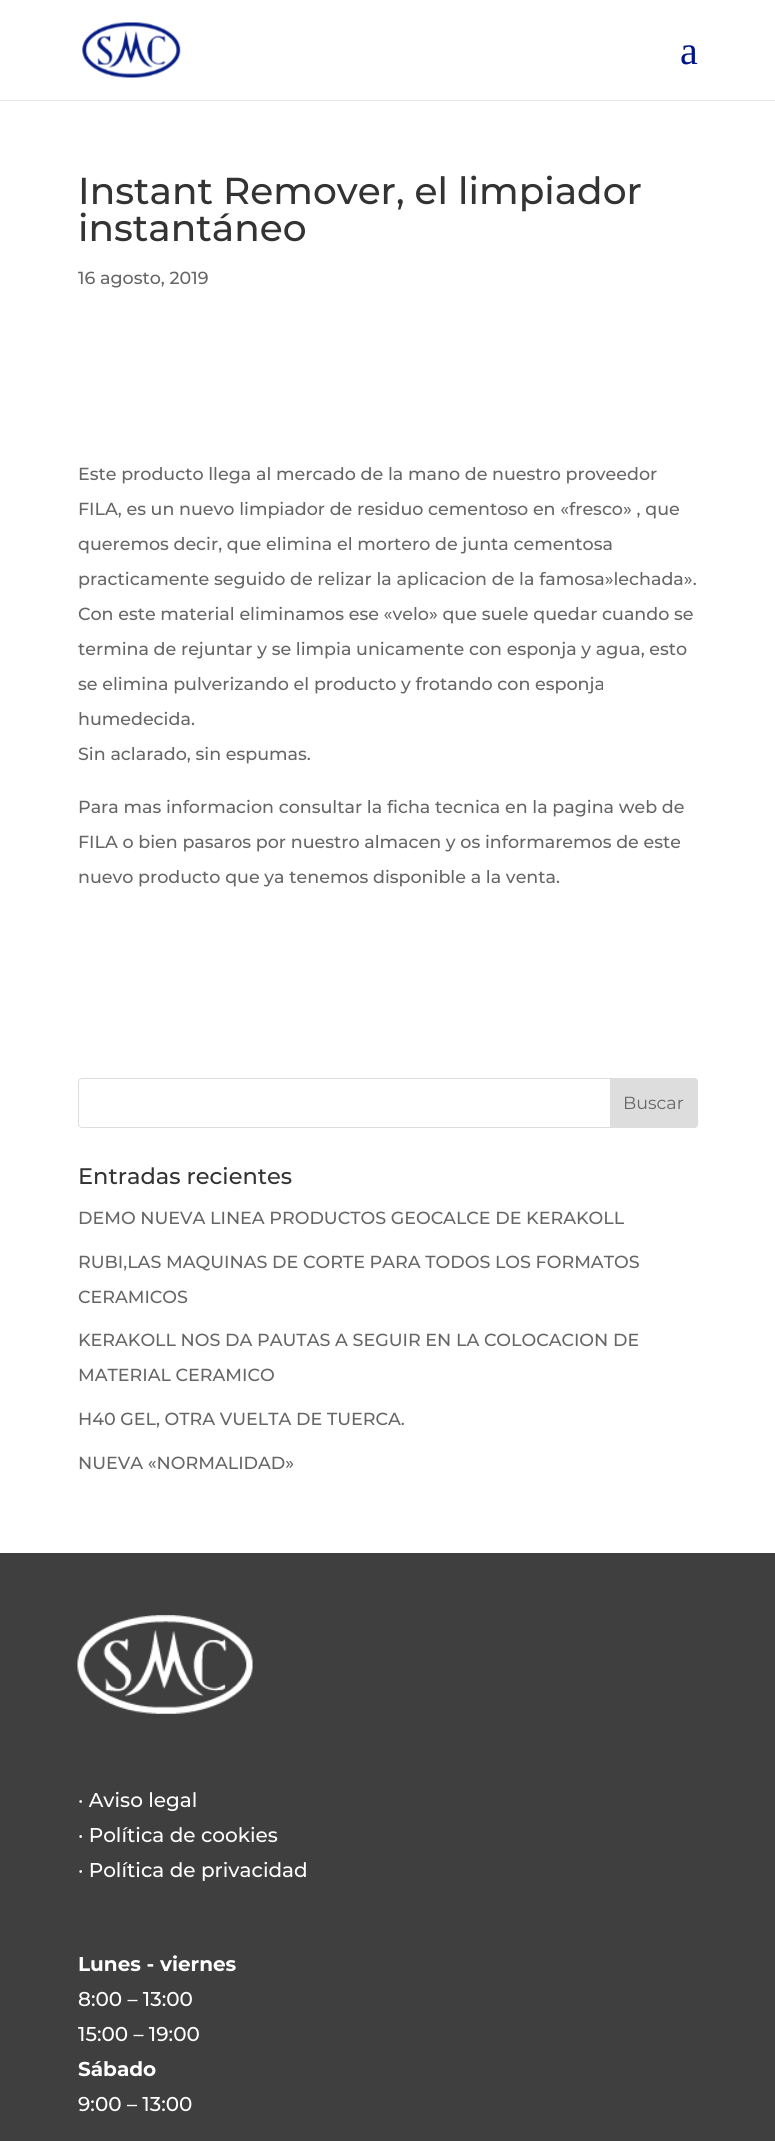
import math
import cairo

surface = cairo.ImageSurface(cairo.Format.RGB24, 775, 2141)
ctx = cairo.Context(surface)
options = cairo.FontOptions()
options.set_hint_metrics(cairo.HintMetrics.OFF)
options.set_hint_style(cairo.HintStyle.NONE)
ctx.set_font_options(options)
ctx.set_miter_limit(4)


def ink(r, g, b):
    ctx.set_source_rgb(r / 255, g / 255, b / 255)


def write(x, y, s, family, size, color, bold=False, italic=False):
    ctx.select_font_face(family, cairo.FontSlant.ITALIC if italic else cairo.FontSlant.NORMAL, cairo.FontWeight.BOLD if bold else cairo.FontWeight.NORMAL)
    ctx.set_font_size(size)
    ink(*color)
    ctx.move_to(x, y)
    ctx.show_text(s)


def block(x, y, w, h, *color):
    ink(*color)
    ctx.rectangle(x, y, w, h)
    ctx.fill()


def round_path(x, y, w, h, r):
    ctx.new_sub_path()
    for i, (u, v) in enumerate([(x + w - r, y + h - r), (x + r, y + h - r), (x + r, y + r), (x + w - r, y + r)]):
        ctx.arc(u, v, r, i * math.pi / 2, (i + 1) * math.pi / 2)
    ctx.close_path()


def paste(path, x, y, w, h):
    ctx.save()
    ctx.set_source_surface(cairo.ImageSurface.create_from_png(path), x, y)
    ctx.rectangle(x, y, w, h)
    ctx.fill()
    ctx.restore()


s1 = dict(family="Liberation Serif", size=40, color=(0, 20, 137))
s2 = dict(family="Montserrat Medium", size=37.5, color=(51, 51, 51))
s3 = dict(family="Montserrat Medium", size=17.5, color=(102, 102, 102))
s4 = dict(family="Montserrat", size=17.5, color=(102, 102, 102))
s5 = dict(family="Montserrat Medium", size=22.5, color=(51, 51, 51))
s6 = dict(family="Montserrat Medium", size=20, color=(255, 255, 255))
s7 = dict(family="Montserrat", size=20, color=(255, 255, 255), bold=True)

ink(255, 255, 255)
ctx.paint()
block(0, 100, 775, 1, 230, 230, 230)
paste("pic1.png", 82, 22, 99, 56)
write(680, 64, "a", **s1)
write(78, 204, "Instant Remover, el limpiador", **s2)
write(78, 241, "instantáneo", **s2)
write(78, 284, "16 agosto, 2019", **s3)
write(78, 480, "Este producto llega al mercado de la mano de nuestro proveedor", **s3)
write(78, 515, "FILA, es un nuevo limpiador de residuo cementoso en «fresco» , que", **s3)
write(78, 550, "queremos decir, que elimina el mortero de junta cementosa", **s3)
write(78, 585, "practicamente seguido de relizar la aplicacion de la famosa»lechada».", **s3)
write(78, 620, "Con este material eliminamos ese «velo» que suele quedar cuando se", **s3)
write(78, 655, "termina de rejuntar y se limpia unicamente con esponja y agua, esto", **s3)
write(78, 690, "se elimina pulverizando el producto y frotando con esponja", **s3)
write(78, 725, "humedecida.", **s3)
write(78, 760, "Sin aclarado, sin espumas.", **s3)
write(78, 813, "Para mas informacion consultar la ficha tecnica en la pagina web de", **s3)
write(78, 848, "FILA o bien pasaros por nuestro almacen y os informaremos de este", **s3)
write(78, 883, "nuevo producto que ya tenemos disponible a la venta.", **s3)
round_path(78.5, 1078.5, 619, 49, 3.5)
ink(221, 221, 221)
ctx.set_line_width(1)
ctx.stroke()
ctx.new_path()
ctx.move_to(610.5, 1078.5)
ctx.line_to(694, 1078.5)
ctx.curve_to(696, 1078.5, 697.5, 1080, 697.5, 1082)
ctx.line_to(697.5, 1124)
ctx.curve_to(697.5, 1126, 696, 1127.5, 694, 1127.5)
ctx.line_to(610.5, 1127.5)
ctx.close_path()
ctx.fill_preserve()
ctx.stroke()
write(623, 1109, "Buscar", **s4)
write(78, 1184, "Entradas recientes", **s5)
write(78, 1224, "DEMO NUEVA LINEA PRODUCTOS GEOCALCE DE KERAKOLL", **s3)
write(78, 1268, "RUBI,LAS MAQUINAS DE CORTE PARA TODOS LOS FORMATOS", **s3)
write(78, 1303, "CERAMICOS", **s3)
write(78, 1346, "KERAKOLL NOS DA PAUTAS A SEGUIR EN LA COLOCACION DE", **s3)
write(78, 1381, "MATERIAL CERAMICO", **s3)
write(78, 1425, "H40 GEL, OTRA VUELTA DE TUERCA.", **s3)
write(78, 1469, "NUEVA «NORMALIDAD»", **s3)
block(0, 1553, 775, 588, 63, 63, 63)
paste("pic2.png", 77, 1615, 176, 99)
write(78, 1807, "· Aviso legal", **s6)
write(78, 1842, "· Política de cookies", **s6)
write(78, 1877, "· Política de privacidad", **s6)
write(78, 1971, "Lunes - viernes", **s7)
write(78, 2006, "8:00 – 13:00", **s6)
write(78, 2041, "15:00 – 19:00", **s6)
write(78, 2076, "Sábado", **s7)
write(78, 2111, "9:00 – 13:00", **s6)
surface.write_to_png("screenshot.png")
